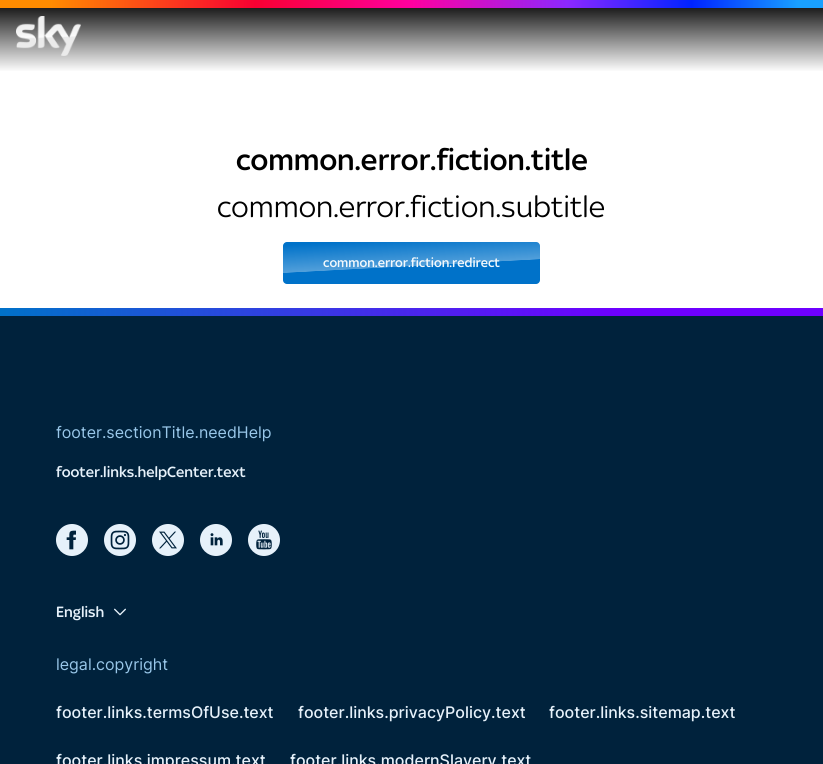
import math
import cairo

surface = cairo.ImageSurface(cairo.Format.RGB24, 823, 764)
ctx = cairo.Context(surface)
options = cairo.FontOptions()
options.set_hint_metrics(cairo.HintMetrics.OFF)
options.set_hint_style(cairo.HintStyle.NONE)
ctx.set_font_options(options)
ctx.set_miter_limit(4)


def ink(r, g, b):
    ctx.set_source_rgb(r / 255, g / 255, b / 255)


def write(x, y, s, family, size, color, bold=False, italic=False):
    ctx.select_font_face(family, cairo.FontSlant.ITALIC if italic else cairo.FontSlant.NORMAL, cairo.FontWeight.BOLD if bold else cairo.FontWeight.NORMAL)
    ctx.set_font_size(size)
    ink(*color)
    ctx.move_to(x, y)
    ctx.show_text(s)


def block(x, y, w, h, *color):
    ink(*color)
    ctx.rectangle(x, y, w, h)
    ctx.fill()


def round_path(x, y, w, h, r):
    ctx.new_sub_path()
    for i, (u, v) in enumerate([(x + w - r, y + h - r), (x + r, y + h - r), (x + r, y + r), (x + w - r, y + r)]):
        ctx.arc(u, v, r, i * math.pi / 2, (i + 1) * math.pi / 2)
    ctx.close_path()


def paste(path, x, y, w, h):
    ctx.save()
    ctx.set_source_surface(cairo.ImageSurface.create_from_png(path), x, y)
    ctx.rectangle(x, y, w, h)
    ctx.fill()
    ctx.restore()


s1 = dict(family="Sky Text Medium", size=32, color=(0, 0, 0))
s2 = dict(family="Sky Text", size=32, color=(0, 0, 0))
s3 = dict(family="Sky Text Medium", size=14, color=(242, 248, 252))
s4 = dict(family="Inter", size=16, color=(153, 199, 233))
s5 = dict(family="Sky Text Medium", size=16, color=(230, 241, 250))
s6 = dict(family="Inter Medium", size=16, color=(230, 241, 250))

ink(255, 255, 255)
ctx.paint()
gradient = cairo.LinearGradient(412, 0, 412, 72)
gradient.add_color_stop_rgba(0, 0, 0, 0, 1)
gradient.add_color_stop_rgba(1, 1, 1, 1, 1)
ctx.set_source(gradient)
ctx.rectangle(0, 8, 823, 63)
ctx.fill()
gradient = cairo.LinearGradient(0, 4, 823, 4)
gradient.add_color_stop_rgba(0.06, 1, 0.549, 0, 1)
gradient.add_color_stop_rgba(0.31, 0.973, 0, 0.196, 1)
gradient.add_color_stop_rgba(0.5, 1, 0, 0.627, 1)
gradient.add_color_stop_rgba(0.69, 0.549, 0.157, 1, 1)
gradient.add_color_stop_rgba(0.84, 0, 0.137, 1, 1)
gradient.add_color_stop_rgba(0.97, 0.098, 0.627, 1, 1)
ctx.set_source(gradient)
ctx.rectangle(0, 0, 823, 8)
ctx.fill()
paste("pic1.png", 16, 16, 65, 40)
write(236, 170, "common.error.fiction.title", **s1)
write(217, 217, "common.error.fiction.subtitle", **s2)
ink(0, 114, 201)
round_path(283, 242, 257, 42, 4)
ctx.fill()
gradient = cairo.LinearGradient(410, 235, 413, 291)
gradient.add_color_stop_rgba(0.06, 1, 1, 1, 0)
gradient.add_color_stop_rgba(0.55, 1, 1, 1, 0.32)
gradient.add_color_stop_rgba(0.56, 1, 1, 1, 0)
ctx.set_source(gradient)
round_path(283, 242, 257, 42, 4)
ctx.fill()
write(323, 267, "common.error.fiction.redirect", **s3)
block(0, 316, 823, 448, 0, 34, 60)
gradient = cairo.LinearGradient(0, 312, 823, 312)
gradient.add_color_stop_rgba(0, 0, 0.447, 0.788, 1)
gradient.add_color_stop_rgba(0.75, 0.431, 0, 1, 1)
ctx.set_source(gradient)
ctx.rectangle(0, 308, 823, 8)
ctx.fill()
write(56, 438, "footer.sectionTitle.needHelp", **s4)
write(56, 477, "footer.links.helpCenter.text", **s5)
paste("pic2.png", 56, 524, 32, 32)
paste("pic3.png", 104, 524, 32, 32)
paste("pic4.png", 152, 524, 32, 32)
paste("pic5.png", 200, 524, 32, 32)
paste("pic6.png", 248, 524, 32, 32)
write(56, 617, "English", **s5)
paste("pic7.png", 114, 608, 12, 8)
write(56, 670, "legal.copyright", **s4)
write(56, 718, "footer.links.termsOfUse.text", **s6)
write(298, 718, "footer.links.privacyPolicy.text", **s6)
write(549, 718, "footer.links.sitemap.text", **s6)
write(56, 766, "footer.links.impressum.text", **s6)
write(290, 766, "footer.links.modernSlavery.text", **s6)
surface.write_to_png("screenshot.png")
